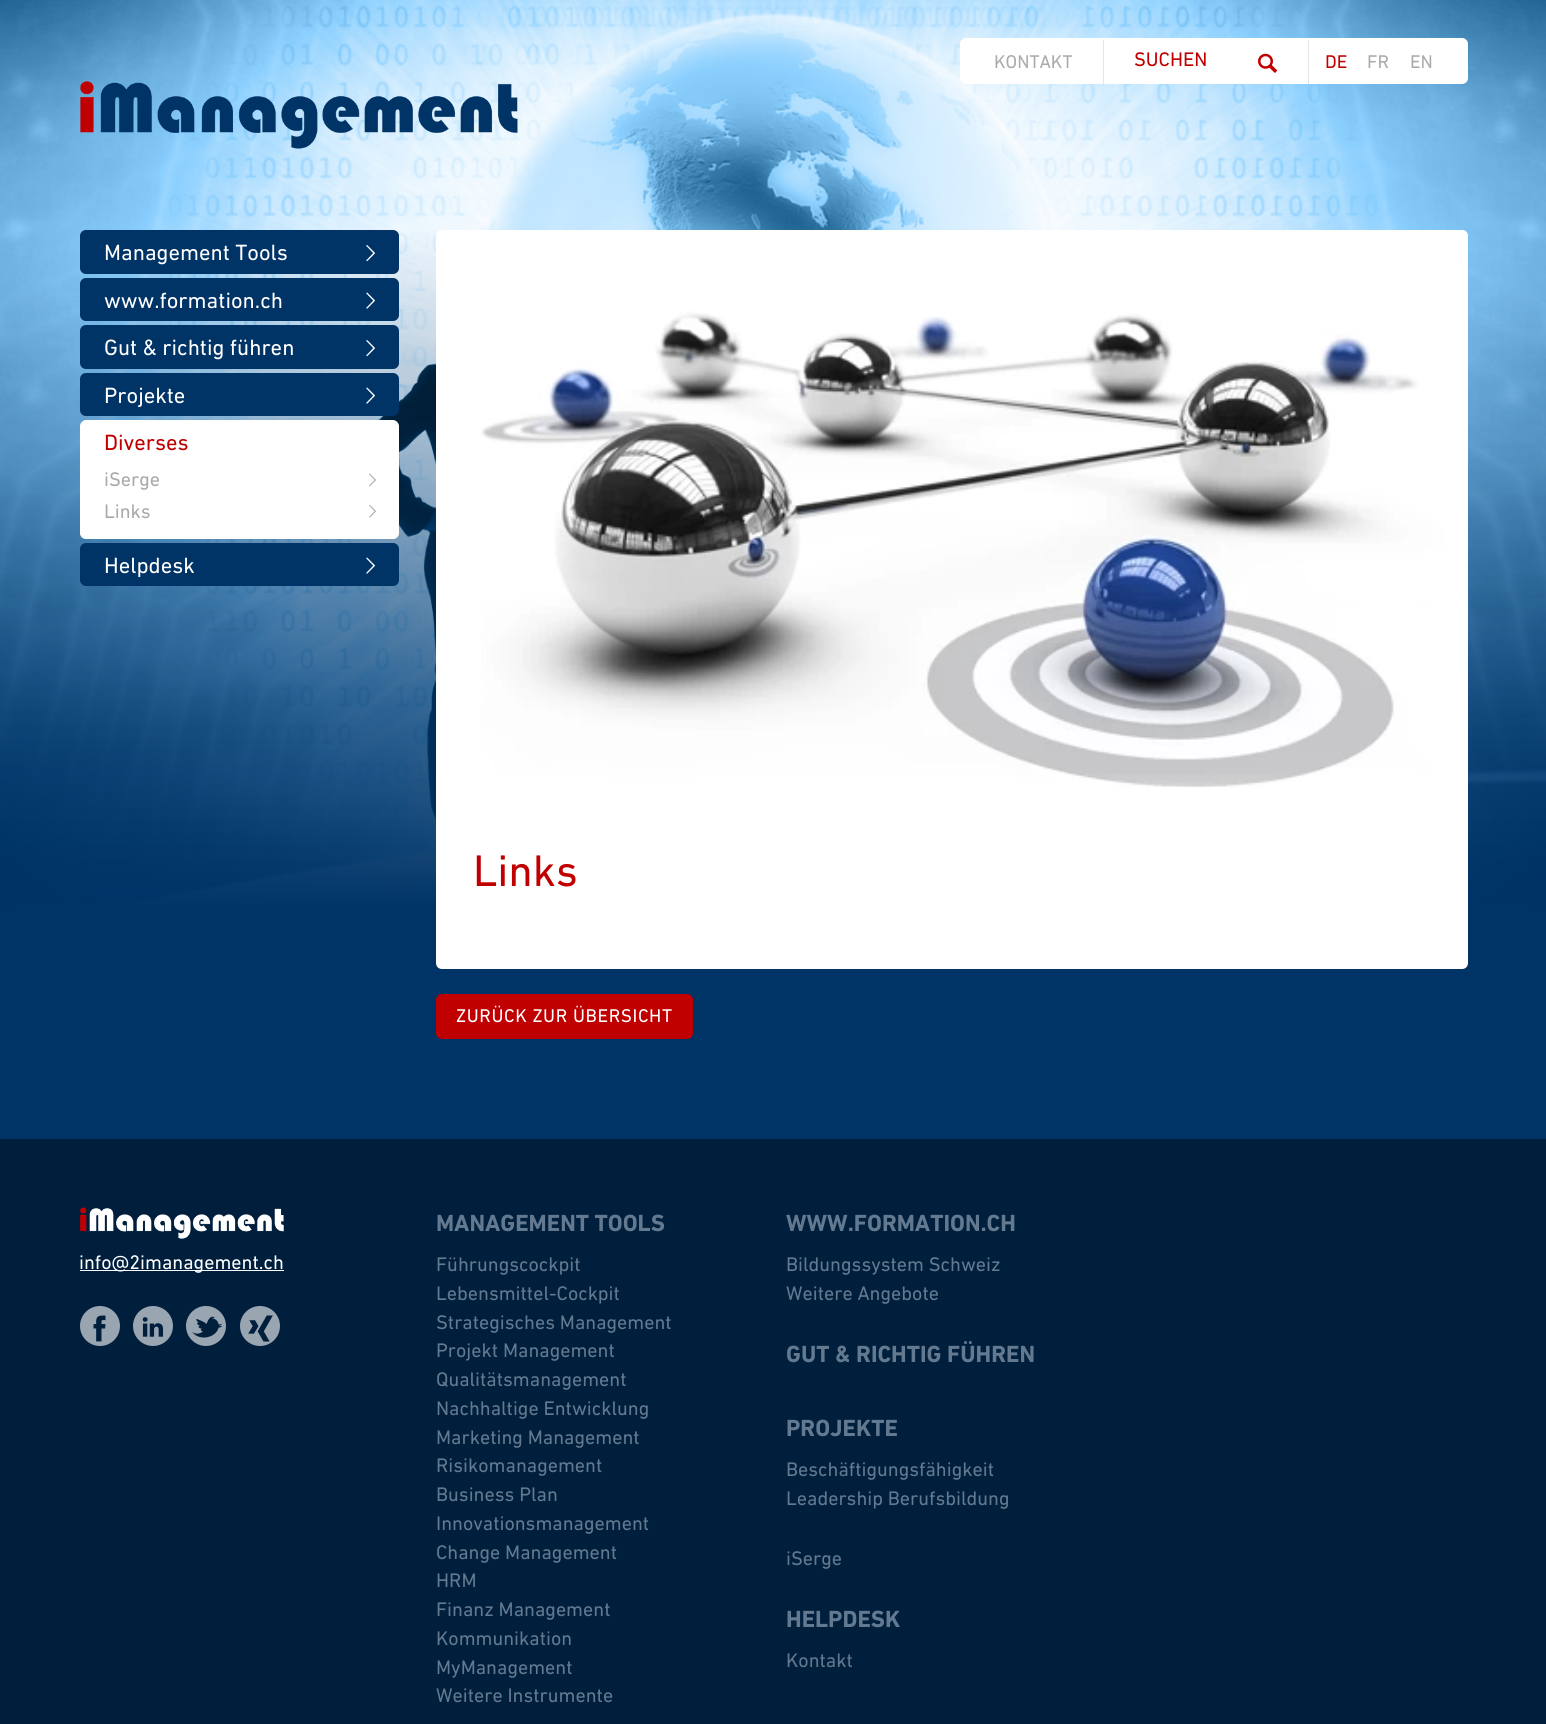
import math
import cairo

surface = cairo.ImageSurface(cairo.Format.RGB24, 1546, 1724)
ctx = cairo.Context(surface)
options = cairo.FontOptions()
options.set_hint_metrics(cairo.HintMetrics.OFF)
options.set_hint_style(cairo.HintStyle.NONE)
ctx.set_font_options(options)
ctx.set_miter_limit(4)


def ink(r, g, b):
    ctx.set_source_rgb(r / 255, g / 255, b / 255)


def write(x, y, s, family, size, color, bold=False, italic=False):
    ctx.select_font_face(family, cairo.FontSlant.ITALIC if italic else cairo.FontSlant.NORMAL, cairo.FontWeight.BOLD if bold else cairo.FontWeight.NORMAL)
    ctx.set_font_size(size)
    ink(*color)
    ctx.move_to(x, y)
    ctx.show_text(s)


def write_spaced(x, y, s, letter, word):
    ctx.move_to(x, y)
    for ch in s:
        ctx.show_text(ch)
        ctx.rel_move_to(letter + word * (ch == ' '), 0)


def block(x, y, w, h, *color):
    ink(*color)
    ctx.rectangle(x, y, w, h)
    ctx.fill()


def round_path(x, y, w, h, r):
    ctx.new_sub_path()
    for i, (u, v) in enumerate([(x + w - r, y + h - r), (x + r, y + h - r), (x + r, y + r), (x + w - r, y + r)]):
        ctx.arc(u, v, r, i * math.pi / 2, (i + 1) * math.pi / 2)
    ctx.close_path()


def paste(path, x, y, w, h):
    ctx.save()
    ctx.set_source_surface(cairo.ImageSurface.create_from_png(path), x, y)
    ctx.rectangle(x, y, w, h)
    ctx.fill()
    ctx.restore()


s1 = dict(family="DIN", size=18.75, color=(170, 170, 170))
s2 = dict(family="DIN", size=20, color=(192, 0, 0))
s3 = dict(family="DIN", size=18.75, color=(192, 0, 0))
s4 = dict(family="DIN", size=22.5, color=(255, 255, 255))
s5 = dict(family="DIN", size=22.5, color=(192, 0, 0))
s6 = dict(family="DIN", size=20, color=(170, 170, 170))
s7 = dict(family="DIN", size=45, color=(192, 0, 0))
s8 = dict(family="DIN", size=20, color=(255, 255, 255))
s9 = dict(family="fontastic", size=29, color=(0, 31, 61))
s10 = dict(family="fontastic", size=23.75, color=(0, 31, 61))
s11 = dict(family="fontastic", size=34, color=(0, 31, 61))
s12 = dict(family="DIN", size=23.75, color=(99, 121, 144), bold=True)
s13 = dict(family="DIN", size=20, color=(99, 121, 144))

ink(0, 51, 102)
ctx.paint()
paste("pic1.png", 0, 0, 1546, 905)
ink(255, 255, 255)
round_path(960, 38, 508, 46, 6)
ctx.fill()
write(994, 68, "KONTAKT", **s1)
block(1308, 40, 1, 44, 229, 229, 229)
block(1103, 40, 1, 44, 229, 229, 229)
write(1134, 66, "SUCHEN", **s2)
paste("pic2.png", 1258, 53, 19, 20)
write(1325, 68, "DE", **s3)
write(1367, 68, "FR", **s1)
write(1410, 68, "EN", **s1)
paste("pic3.png", 80, 81, 438, 68)
ink(0, 51, 102)
round_path(80, 230, 319, 44, 6)
ctx.fill()
write(104, 260, "Management Tools", **s4)
paste("pic4.png", 366, 245, 9, 17)
ink(0, 51, 102)
round_path(80, 278, 319, 43, 6)
ctx.fill()
write(104, 308, "www.formation.ch", **s4)
paste("pic5.png", 366, 292, 9, 17)
ink(0, 51, 102)
round_path(80, 325, 319, 44, 6)
ctx.fill()
write(104, 355, "Gut & richtig führen", **s4)
paste("pic4.png", 366, 340, 9, 17)
ink(0, 51, 102)
round_path(80, 373, 319, 43, 6)
ctx.fill()
write(104, 403, "Projekte", **s4)
paste("pic5.png", 366, 387, 9, 17)
ctx.new_path()
ctx.move_to(80, 451)
ctx.line_to(399, 451)
ctx.line_to(399, 533)
ctx.curve_to(399, 536.5, 396.5, 539, 393, 539)
ctx.line_to(86, 539)
ctx.curve_to(82.5, 539, 80, 536.5, 80, 533)
ctx.close_path()
ctx.fill()
ctx.new_path()
ctx.move_to(86, 420)
ctx.curve_to(83, 420, 80, 423, 80, 426)
ctx.line_to(80, 458)
ctx.curve_to(80, 461, 83, 464, 86, 464)
ctx.line_to(393, 464)
ctx.curve_to(396, 464, 399, 461, 399, 458)
ctx.line_to(399, 426)
ctx.curve_to(399, 423, 396, 420, 393, 420)
ctx.close_path()
ctx.fill()
write(104, 450, "Diverses", **s5)
write(104, 486, "iSerge", **s6)
paste("pic6.png", 369, 473, 7, 14)
write(104, 518, "Links", **s6)
paste("pic7.png", 369, 504, 7, 14)
ink(0, 51, 102)
round_path(80, 543, 319, 43, 6)
ctx.fill()
write(104, 573, "Helpdesk", **s4)
paste("pic5.png", 366, 557, 9, 17)
ctx.new_path()
ctx.move_to(436, 809)
ctx.line_to(1468, 809)
ctx.line_to(1468, 963)
ctx.curve_to(1468, 966.5, 1465.5, 969, 1462, 969)
ctx.line_to(442, 969)
ctx.curve_to(438.5, 969, 436, 966.5, 436, 963)
ctx.close_path()
ctx.fill()
ctx.new_path()
ctx.move_to(442, 230)
ctx.line_to(1462, 230)
ctx.curve_to(1465.5, 230, 1468, 232.5, 1468, 236)
ctx.line_to(1468, 810)
ctx.line_to(436, 810)
ctx.line_to(436, 236)
ctx.curve_to(436, 232.5, 438.5, 230, 442, 230)
ctx.close_path()
ctx.fill()
paste("pic8.png", 481, 230, 986, 558)
write(473, 886, "Links", **s7)
round_path(436.5, 994.5, 256, 44, 5.5)
ctx.fill_preserve()
ctx.set_line_width(1)
ctx.stroke()
ctx.set_font_size(18.75)
ink(255, 255, 255)
write_spaced(456, 1022, "ZURÜCK ZUR ÜBERSICHT", 0.6, 0)
block(0, 1139, 1546, 585, 0, 31, 61)
paste("pic9.png", 80, 1207, 204, 32)
block(80, 1270, 204, 1, 255, 255, 255)
write(79, 1269, "info@2imanagement.ch", **s8)
ink(153, 165, 177)
ctx.new_path()
ctx.arc(100, 1326, 20, 0, 2 * math.pi)
ctx.fill()
write(85, 1343, "f", **s9)
ink(153, 165, 177)
ctx.new_path()
ctx.arc(153, 1326, 20, 0, 2 * math.pi)
ctx.fill()
write(141, 1339, "i", **s10)
ink(153, 165, 177)
ctx.new_path()
ctx.arc(206, 1326, 20, 0, 2 * math.pi)
ctx.fill()
write(190, 1344, "t", **s11)
ink(153, 165, 177)
ctx.new_path()
ctx.arc(260, 1326, 20, 0, 2 * math.pi)
ctx.fill()
write(246, 1343, "x", **s9)
write(436, 1231, "MANAGEMENT TOOLS", **s12)
write(436, 1271, "Führungscockpit", **s13)
write(436, 1300, "Lebensmittel-Cockpit", **s13)
write(436, 1329, "Strategisches Management", **s13)
write(436, 1357, "Projekt Management", **s13)
write(436, 1386, "Qualitätsmanagement", **s13)
write(436, 1415, "Nachhaltige Entwicklung", **s13)
write(436, 1444, "Marketing Management", **s13)
write(436, 1472, "Risikomanagement", **s13)
write(436, 1501, "Business Plan", **s13)
write(436, 1530, "Innovationsmanagement", **s13)
write(436, 1559, "Change Management", **s13)
write(436, 1587, "HRM", **s13)
write(436, 1616, "Finanz Management", **s13)
write(436, 1645, "Kommunikation", **s13)
write(436, 1674, "MyManagement", **s13)
write(436, 1702, "Weitere Instrumente", **s13)
write(786, 1231, "WWW.FORMATION.CH", **s12)
write(786, 1271, "Bildungssystem Schweiz", **s13)
write(786, 1300, "Weitere Angebote", **s13)
write(786, 1362, "GUT & RICHTIG FÜHREN", **s12)
write(786, 1436, "PROJEKTE", **s12)
write(786, 1476, "Beschäftigungsfähigkeit", **s13)
write(786, 1505, "Leadership Berufsbildung", **s13)
write(786, 1565, "iSerge", **s13)
write(786, 1627, "HELPDESK", **s12)
write(786, 1667, "Kontakt", **s13)
surface.write_to_png("screenshot.png")
